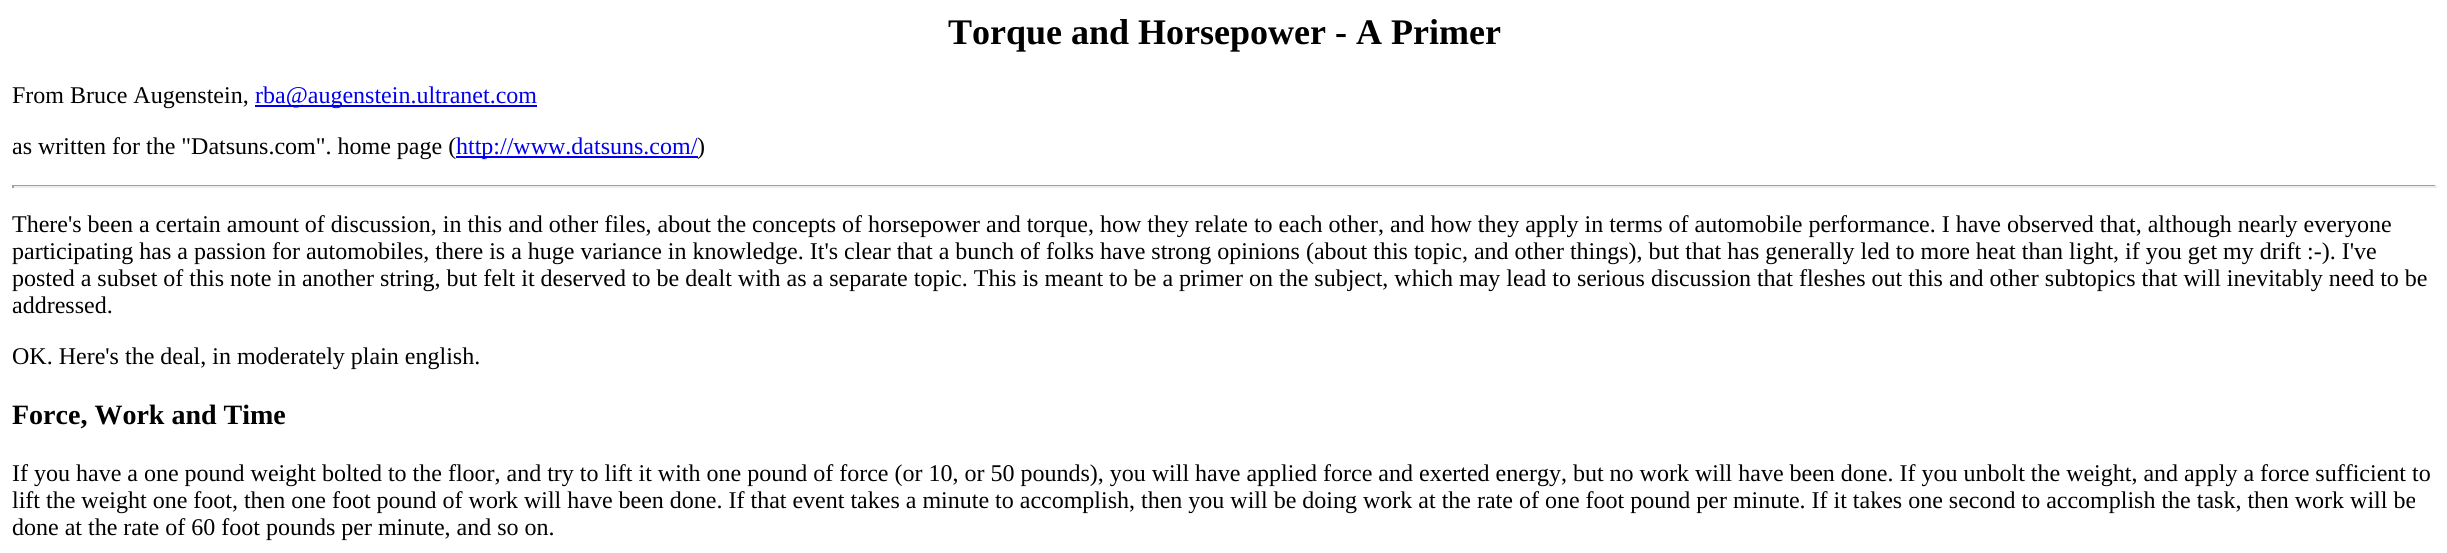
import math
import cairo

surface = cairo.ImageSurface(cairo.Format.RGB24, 2447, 553)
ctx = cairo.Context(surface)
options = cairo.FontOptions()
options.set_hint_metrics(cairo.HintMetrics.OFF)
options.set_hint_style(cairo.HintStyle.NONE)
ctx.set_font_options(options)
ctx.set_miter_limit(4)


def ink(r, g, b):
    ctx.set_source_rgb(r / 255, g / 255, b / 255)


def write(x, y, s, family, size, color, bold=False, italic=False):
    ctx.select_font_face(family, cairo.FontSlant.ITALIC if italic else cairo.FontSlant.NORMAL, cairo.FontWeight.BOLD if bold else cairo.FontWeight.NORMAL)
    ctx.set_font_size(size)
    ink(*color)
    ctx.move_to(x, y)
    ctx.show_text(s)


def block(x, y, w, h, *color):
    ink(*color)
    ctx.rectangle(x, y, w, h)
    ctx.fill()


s1 = dict(family="Liberation Serif", size=36, color=(0, 0, 0), bold=True)
s2 = dict(family="Liberation Serif", size=24, color=(0, 0, 0))
s3 = dict(family="Liberation Serif", size=24, color=(0, 0, 238))
s4 = dict(family="Liberation Serif", size=28, color=(0, 0, 0), bold=True)

ink(255, 255, 255)
ctx.paint()
write(948, 44, "Torque and Horsepower - A Primer", **s1)
write(12, 103, "From Bruce Augenstein,", **s2)
block(255, 105, 282, 2, 0, 0, 238)
write(255, 103, "rba@augenstein.ultranet.com", **s3)
write(12, 154, "as written for the \"Datsuns.com\". home page (", **s2)
block(456, 156, 242, 2, 0, 0, 238)
write(456, 154, "http://www.datsuns.com/", **s3)
write(697, 154, ")", **s2)
block(12, 185, 2424, 1, 159, 159, 159)
block(2435, 185, 2, 3, 238, 238, 238)
block(12, 186, 2424, 2, 238, 238, 238)
block(12, 185, 2, 3, 159, 159, 159)
write(12, 232, "There's been a certain amount of discussion, in this and other files, about the concepts of horsepower and torque, how they relate to each other, and how they apply in terms of automobile performance. I have observed that, although nearly everyone", **s2)
write(12, 259, "participating has a passion for automobiles, there is a huge variance in knowledge. It's clear that a bunch of folks have strong opinions (about this topic, and other things), but that has generally led to more heat than light, if you get my drift :-). I've", **s2)
write(12, 286, "posted a subset of this note in another string, but felt it deserved to be dealt with as a separate topic. This is meant to be a primer on the subject, which may lead to serious discussion that fleshes out this and other subtopics that will inevitably need to be", **s2)
write(12, 313, "addressed.", **s2)
write(12, 364, "OK. Here's the deal, in moderately plain english.", **s2)
write(12, 424, "Force, Work and Time", **s4)
write(12, 481, "If you have a one pound weight bolted to the floor, and try to lift it with one pound of force (or 10, or 50 pounds), you will have applied force and exerted energy, but no work will have been done. If you unbolt the weight, and apply a force sufficient to", **s2)
write(12, 508, "lift the weight one foot, then one foot pound of work will have been done. If that event takes a minute to accomplish, then you will be doing work at the rate of one foot pound per minute. If it takes one second to accomplish the task, then work will be", **s2)
write(12, 535, "done at the rate of 60 foot pounds per minute, and so on.", **s2)
surface.write_to_png("screenshot.png")
